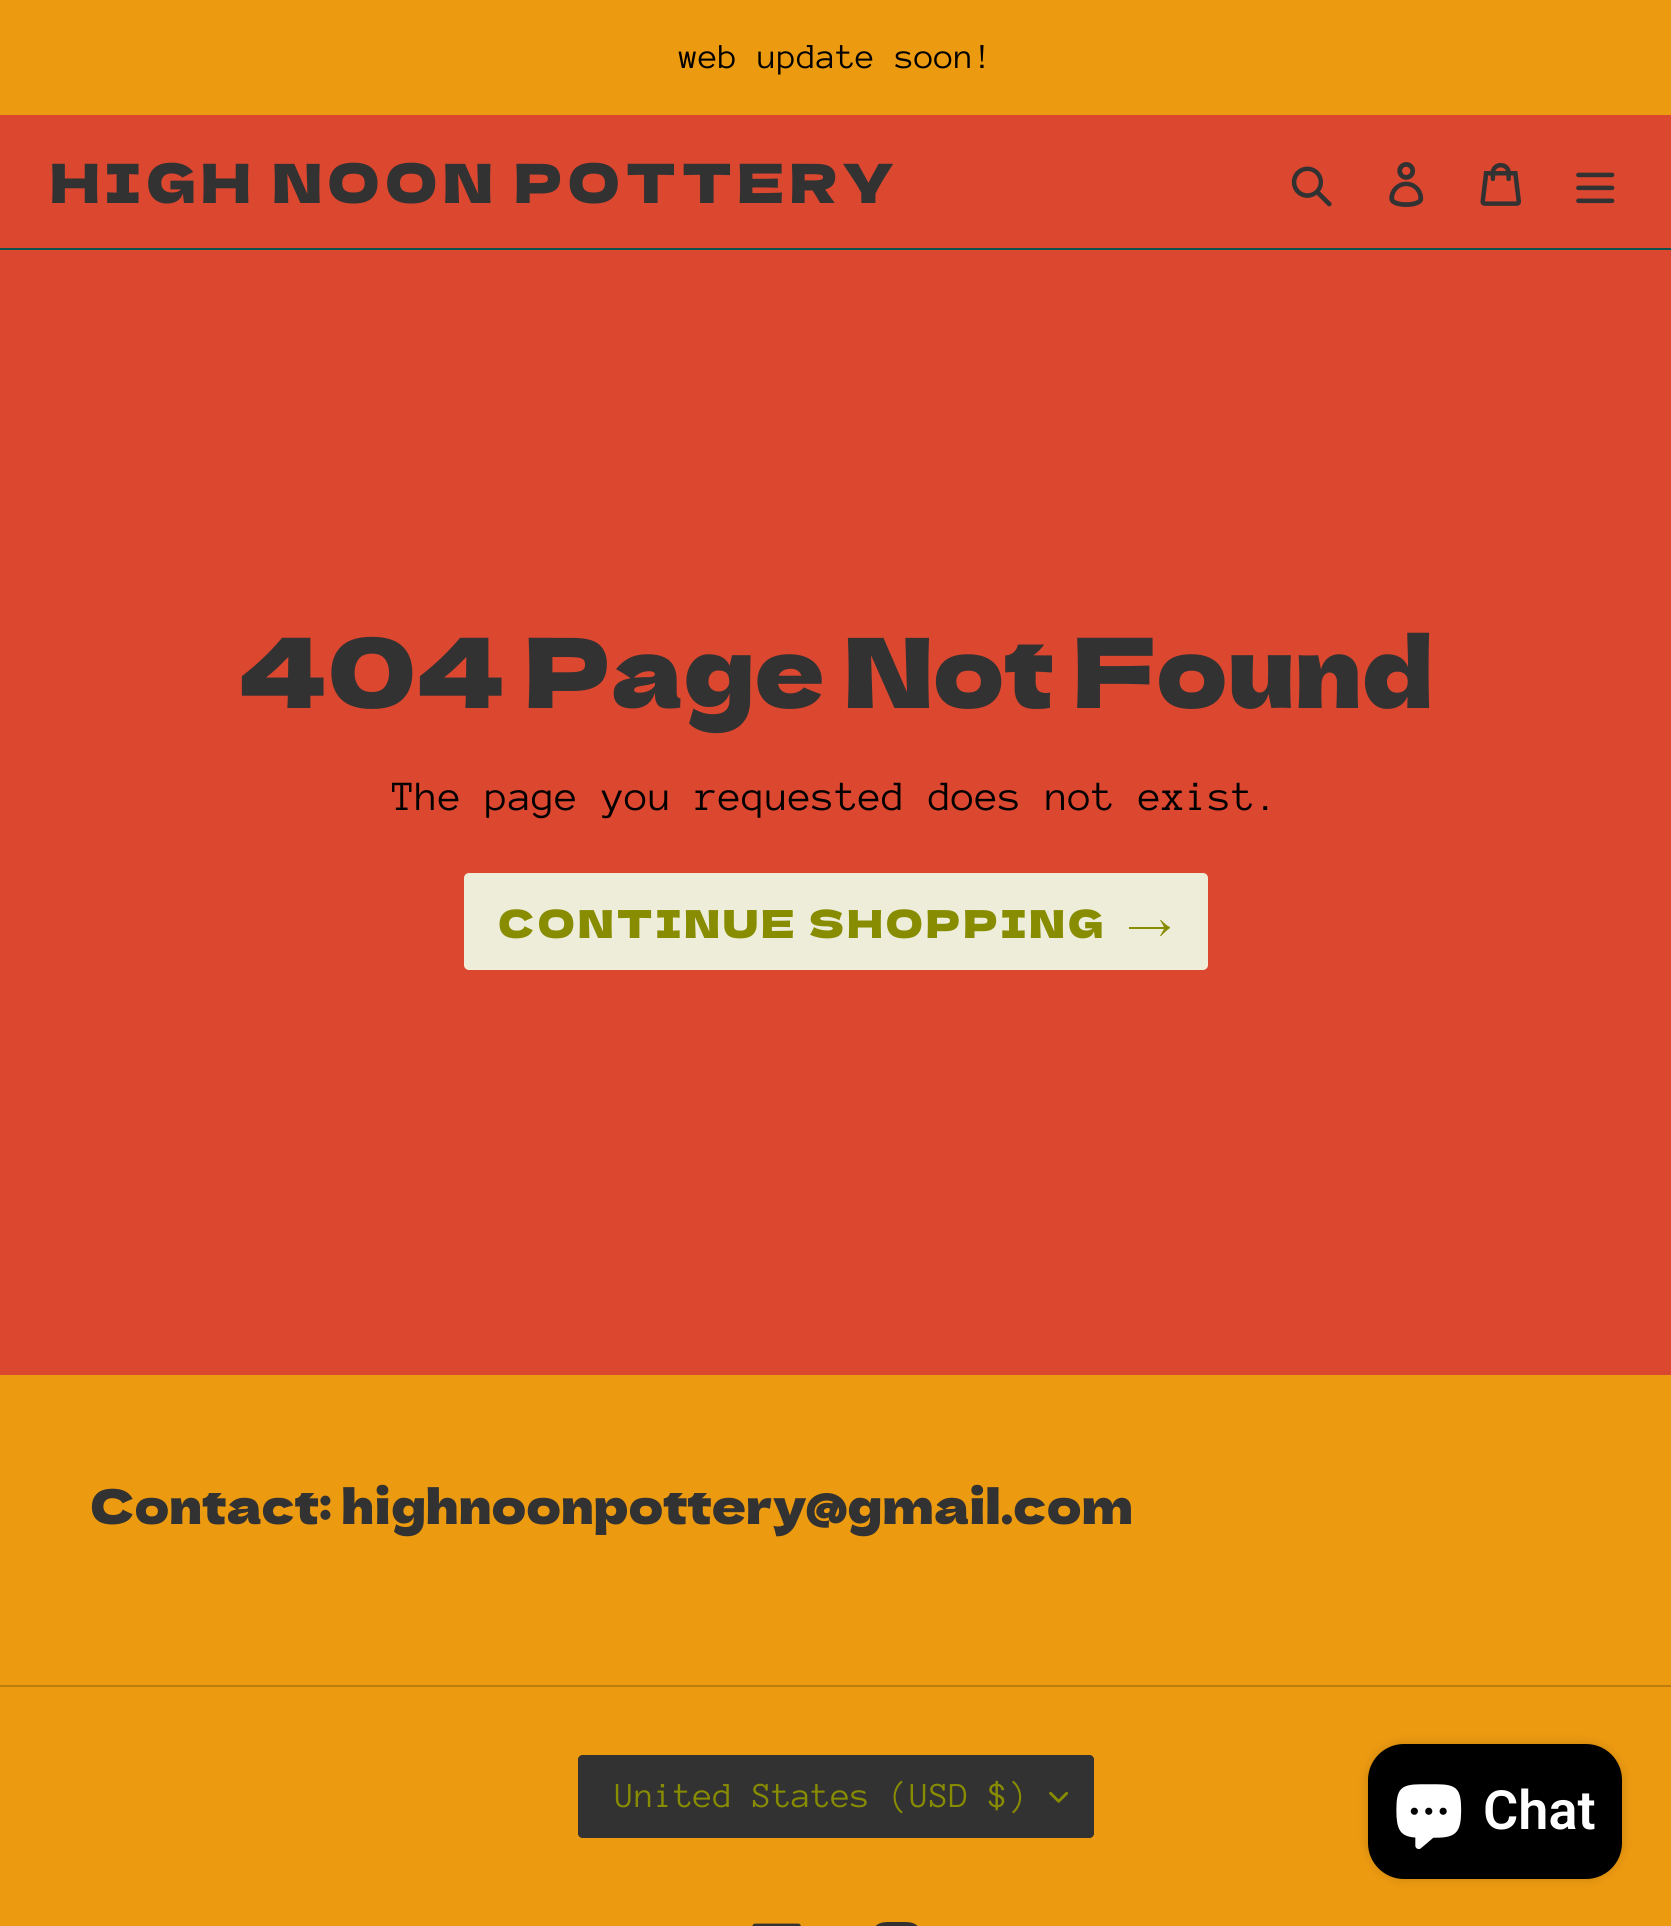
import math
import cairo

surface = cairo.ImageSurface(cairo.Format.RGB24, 1671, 1926)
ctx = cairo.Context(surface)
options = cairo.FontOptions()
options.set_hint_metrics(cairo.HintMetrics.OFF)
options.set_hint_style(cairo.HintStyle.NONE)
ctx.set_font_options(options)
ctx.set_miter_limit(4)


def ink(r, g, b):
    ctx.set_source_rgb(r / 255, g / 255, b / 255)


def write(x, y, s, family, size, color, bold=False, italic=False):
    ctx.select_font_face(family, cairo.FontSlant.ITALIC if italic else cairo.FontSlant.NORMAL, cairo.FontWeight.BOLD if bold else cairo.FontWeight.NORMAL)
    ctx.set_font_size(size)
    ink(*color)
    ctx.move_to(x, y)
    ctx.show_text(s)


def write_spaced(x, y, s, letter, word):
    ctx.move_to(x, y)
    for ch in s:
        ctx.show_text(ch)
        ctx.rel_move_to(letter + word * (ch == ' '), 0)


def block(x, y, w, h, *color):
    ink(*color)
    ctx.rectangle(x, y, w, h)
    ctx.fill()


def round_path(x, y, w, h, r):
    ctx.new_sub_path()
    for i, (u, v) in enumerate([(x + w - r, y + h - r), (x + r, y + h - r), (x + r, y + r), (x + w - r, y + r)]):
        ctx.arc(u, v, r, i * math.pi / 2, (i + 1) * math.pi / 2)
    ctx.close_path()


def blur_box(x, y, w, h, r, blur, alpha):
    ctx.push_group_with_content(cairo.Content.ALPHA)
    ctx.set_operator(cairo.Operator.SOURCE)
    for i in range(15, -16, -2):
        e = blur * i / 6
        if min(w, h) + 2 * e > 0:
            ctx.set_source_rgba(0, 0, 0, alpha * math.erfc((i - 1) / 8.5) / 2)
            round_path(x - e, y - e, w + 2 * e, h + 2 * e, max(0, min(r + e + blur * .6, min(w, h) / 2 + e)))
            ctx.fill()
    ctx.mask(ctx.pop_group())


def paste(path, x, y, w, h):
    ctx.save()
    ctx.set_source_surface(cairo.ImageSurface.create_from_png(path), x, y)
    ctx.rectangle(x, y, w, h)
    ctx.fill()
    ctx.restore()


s1 = dict(family="Anonymous Pro", size=36, color=(0, 0, 0))
s2 = dict(family="Dela Gothic One", size=96.75, color=(51, 50, 50))
s3 = dict(family="Anonymous Pro", size=42.75, color=(0, 0, 0))
s4 = dict(family="Dela Gothic One", size=47.25, color=(51, 50, 50))
s5 = dict(family="Anonymous Pro", size=36, color=(136, 140, 0))
s6 = dict(family="Roboto SemiBold", size=54, color=(255, 255, 255))

ink(220, 71, 48)
ctx.paint()
block(0, 0, 1671, 115, 236, 154, 16)
write(679, 68, "web update soon!", **s1)
block(0, 248, 1671, 2, 14, 83, 76)
ctx.select_font_face("Dela Gothic One")
ctx.set_font_size(54)
ink(51, 50, 50)
write_spaced(50, 203, "HIGH NOON POTTERY", 5.4, 0)
paste("pic1.png", 1291, 166, 41, 41)
paste("pic2.png", 1389, 162, 35, 45)
paste("pic3.png", 1480, 162, 41, 44)
paste("pic4.png", 1576, 172, 39, 32)
write(238, 708, "404 Page Not Found", **s2)
write(392, 810, "The page you requested does not exist.", **s3)
ink(237, 237, 217)
round_path(464, 873, 744, 97, 5)
ctx.fill()
ctx.select_font_face("Dela Gothic One")
ctx.set_font_size(38.5)
ink(136, 140, 0)
write_spaced(498, 938, "CONTINUE SHOPPING", 3.1, 0)
ctx.set_fill_rule(cairo.FillRule.EVEN_ODD)
ctx.new_path()
ctx.move_to(1161, 920)
ctx.curve_to(1164, 923, 1167, 926, 1170, 927)
ctx.line_to(1170, 928)
ctx.curve_to(1167, 930, 1164, 933, 1161, 936)
ctx.line_to(1160, 936)
ctx.line_to(1164, 929)
ctx.line_to(1129, 929)
ctx.line_to(1129, 927)
ctx.line_to(1164, 927)
ctx.line_to(1160, 920)
ctx.close_path()
ctx.fill()
block(0, 1375, 1671, 551, 236, 154, 16)
write(90, 1524, "Contact: highnoonpottery@gmail.com", **s4)
block(0, 1685, 1671, 2, 188, 123, 13)
ink(51, 50, 50)
round_path(578, 1755, 516, 83, 5)
ctx.fill()
paste("pic5.png", 1049, 1791, 20, 12)
round_path(579, 1756, 514, 81, 4)
ctx.stroke()
write(615, 1807, "United States (USD $)", **s5)
paste("pic6.png", 752, 1923, 49, 3)
paste("pic7.png", 875, 1922, 43, 4)
ink(0, 0, 0)
blur_box(1368, 1744, 254, 135, 36, 5.5, 0.15)
ink(0, 0, 0)
round_path(1368, 1744, 254, 135, 36)
ctx.fill()
paste("pic8.png", 1396, 1784, 66, 65)
write(1483, 1829, "Chat", **s6)
surface.write_to_png("screenshot.png")
